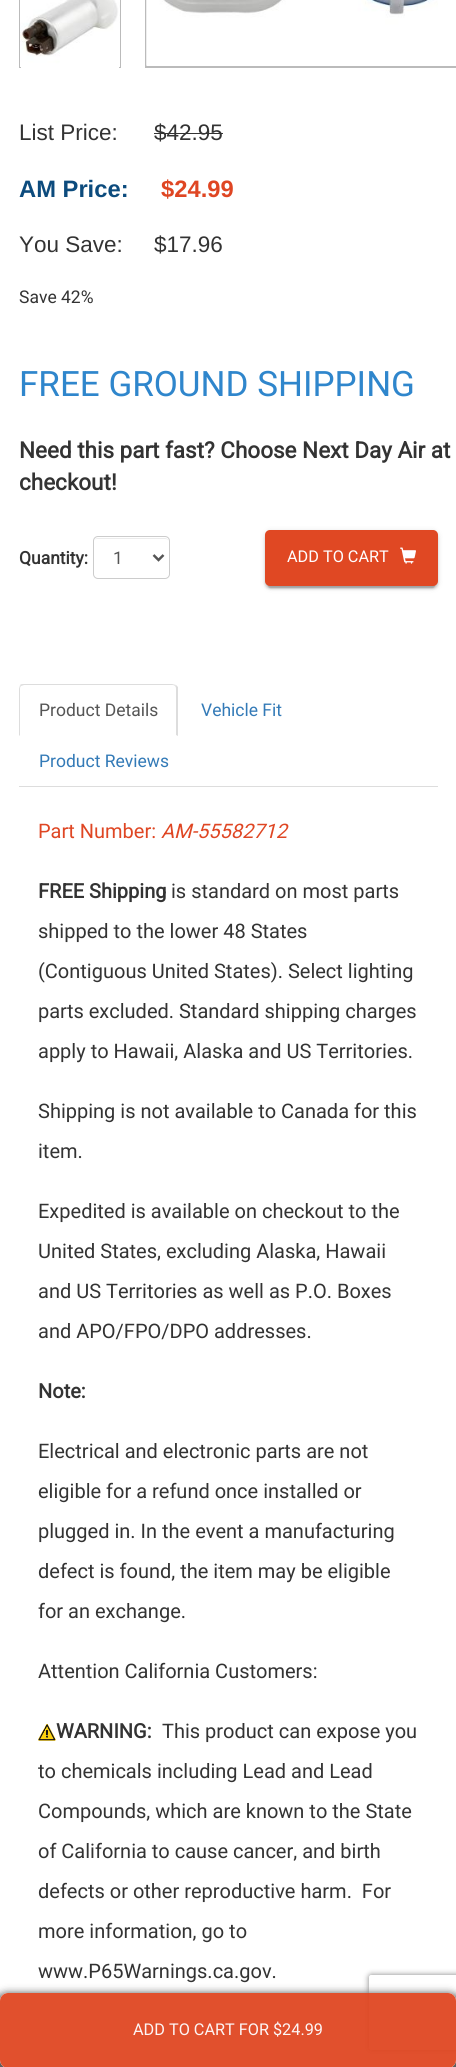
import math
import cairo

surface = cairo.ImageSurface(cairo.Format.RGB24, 456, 2067)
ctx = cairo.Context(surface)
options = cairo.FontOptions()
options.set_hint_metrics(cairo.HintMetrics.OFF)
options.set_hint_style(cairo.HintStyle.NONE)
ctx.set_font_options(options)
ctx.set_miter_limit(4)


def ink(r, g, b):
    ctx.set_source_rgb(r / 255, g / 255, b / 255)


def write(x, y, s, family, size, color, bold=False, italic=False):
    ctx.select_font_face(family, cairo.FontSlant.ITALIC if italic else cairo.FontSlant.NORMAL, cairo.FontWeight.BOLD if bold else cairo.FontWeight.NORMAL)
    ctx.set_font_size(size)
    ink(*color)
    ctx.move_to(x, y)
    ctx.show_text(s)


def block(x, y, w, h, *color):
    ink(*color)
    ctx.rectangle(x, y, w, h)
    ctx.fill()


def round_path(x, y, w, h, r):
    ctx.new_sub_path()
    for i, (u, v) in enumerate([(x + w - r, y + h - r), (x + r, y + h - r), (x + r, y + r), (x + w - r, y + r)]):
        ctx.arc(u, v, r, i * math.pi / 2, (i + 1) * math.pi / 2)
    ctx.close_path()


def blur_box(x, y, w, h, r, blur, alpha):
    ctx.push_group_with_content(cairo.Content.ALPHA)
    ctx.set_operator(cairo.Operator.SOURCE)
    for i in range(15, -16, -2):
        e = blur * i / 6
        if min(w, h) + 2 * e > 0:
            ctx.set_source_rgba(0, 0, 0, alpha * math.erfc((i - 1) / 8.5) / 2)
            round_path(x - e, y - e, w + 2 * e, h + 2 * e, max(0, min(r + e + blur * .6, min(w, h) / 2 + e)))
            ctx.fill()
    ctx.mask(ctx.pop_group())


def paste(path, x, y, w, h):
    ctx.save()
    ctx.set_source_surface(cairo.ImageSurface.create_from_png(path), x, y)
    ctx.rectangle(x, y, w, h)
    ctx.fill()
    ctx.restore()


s1 = dict(family="Liberation Sans", size=22.5, color=(51, 51, 51))
s2 = dict(family="Liberation Sans", size=23.75, color=(12, 75, 125), bold=True)
s3 = dict(family="Liberation Sans", size=23.75, color=(223, 70, 35), bold=True)
s4 = dict(family="Roboto", size=17.5, color=(51, 51, 51))
s5 = dict(family="Roboto", size=35, color=(47, 134, 204))
s6 = dict(family="Roboto", size=22.5, color=(51, 51, 51), bold=True)
s7 = dict(family="Roboto", size=17.5, color=(51, 51, 51), bold=True)
s8 = dict(family="Roboto", size=17.5, color=(85, 85, 85))
s9 = dict(family="Roboto", size=16.25, color=(255, 254, 255))
s10 = dict(family="Roboto", size=17.5, color=(51, 122, 183))
s11 = dict(family="Roboto", size=20, color=(223, 70, 35))
s12 = dict(family="Roboto", size=20, color=(223, 70, 35), italic=True)
s13 = dict(family="Roboto", size=20, color=(51, 51, 51), bold=True)
s14 = dict(family="Roboto", size=20, color=(51, 51, 51))
s15 = dict(family="Roboto", size=16.25, color=(253, 245, 245))

ink(255, 255, 255)
ctx.paint()
ctx.save()
ctx.rectangle(19, 0, 111, 68)
ctx.clip()
ctx.rectangle(20, -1, 100, 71)
ink(187, 187, 187)
ctx.stroke()
ctx.restore()
paste("pic1.png", 20, 0, 100, 67)
ctx.rectangle(146, -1, 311, 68)
ink(187, 187, 187)
ctx.stroke()
paste("pic2.png", 146, 0, 292, 66)
write(19, 140, "List Price:", **s1)
write(154, 140, "$42.95", **s1)
block(154, 133, 69, 1, 51, 51, 51)
write(19, 197, "AM Price:", **s2)
write(161, 197, "$24.99", **s3)
write(19, 252, "You Save:", **s1)
write(154, 252, "$17.96", **s1)
write(19, 303, "Save 42%", **s4)
write(19, 396, "FREE GROUND SHIPPING", **s5)
write(19, 458, "Need this part fast? Choose Next Day Air at", **s6)
write(19, 490, "checkout!", **s6)
write(19, 564, "Quantity:", **s7)
ink(236, 236, 236)
ctx.new_path()
ctx.move_to(98, 539)
ctx.line_to(165, 539)
ctx.curve_to(167, 539, 169, 540, 169, 542)
ctx.curve_to(169, 540, 167, 538, 165, 538)
ctx.line_to(98, 538)
ctx.curve_to(96, 538, 95, 539, 94, 540)
ctx.curve_to(95, 539, 96, 539, 98, 539)
ctx.close_path()
ctx.fill()
round_path(93.5, 536.5, 76, 42, 4.5)
ink(204, 204, 204)
ctx.set_line_width(1)
ctx.stroke()
ctx.new_path()
ctx.move_to(153.5, 555)
ctx.line_to(158.5, 560)
ctx.line_to(163.5, 555)
ink(85, 85, 85)
ctx.set_line_width(2.5)
ctx.stroke()
write(113, 564, "1", **s8)
ink(0, 0, 0)
blur_box(268, 536, 167, 52, 2.5, 0.5, 0.2)
blur_box(265, 531, 173, 57, 5, 3, 0.12)
blur_box(265, 533, 173, 56, 5, 1, 0.14)
ink(224, 72, 35)
round_path(265, 530, 173, 56, 5)
ctx.fill()
write(287, 562, "ADD TO CART", **s9)
paste("pic3.png", 400, 547, 16, 17)
block(19, 786, 419, 1, 221, 221, 221)
ctx.new_path()
ctx.move_to(24, 684)
ctx.curve_to(22, 684, 21, 684, 20, 685)
ctx.line_to(21, 686)
ctx.line_to(24, 685)
ctx.line_to(172, 685)
ctx.curve_to(173, 685, 174, 685, 175, 686)
ctx.line_to(176, 685)
ctx.line_to(172, 684)
ctx.close_path()
ctx.fill()
ctx.new_path()
ctx.move_to(176, 685)
ctx.line_to(178, 687)
ctx.line_to(178, 736)
ctx.line_to(176, 735)
ctx.line_to(176, 689)
ctx.curve_to(176, 688, 176, 687, 175, 686)
ctx.close_path()
ctx.fill()
ctx.new_path()
ctx.move_to(20, 685)
ctx.curve_to(20, 686, 19, 688, 19, 689)
ctx.line_to(19, 736)
ctx.line_to(20, 735)
ctx.line_to(20, 689)
ctx.curve_to(20, 688, 20, 687, 21, 686)
ctx.close_path()
ctx.fill()
write(39, 716, "Product Details", **s8)
write(201, 716, "Vehicle Fit", **s10)
write(39, 767, "Product Reviews", **s10)
write(38, 838, "Part Number:", **s11)
write(161, 838, "AM-55582712", **s12)
write(38, 898, "FREE Shipping", **s13)
write(171, 898, "is standard on most parts", **s14)
write(38, 938, "shipped to the lower 48 States", **s14)
write(38, 978, "(Contiguous United States). Select lighting", **s14)
write(38, 1018, "parts excluded. Standard shipping charges", **s14)
write(38, 1058, "apply to Hawaii, Alaska and US Territories.", **s14)
write(38, 1118, "Shipping is not available to Canada for this", **s14)
write(38, 1158, "item.", **s14)
write(38, 1218, "Expedited is available on checkout to the", **s14)
write(38, 1258, "United States, excluding Alaska, Hawaii", **s14)
write(38, 1298, "and US Territories as well as P.O. Boxes", **s14)
write(38, 1338, "and APO/FPO/DPO addresses.", **s14)
write(38, 1398, "Note:", **s13)
write(38, 1458, "Electrical and electronic parts are not", **s14)
write(38, 1498, "eligible for a refund once installed or", **s14)
write(38, 1538, "plugged in. In the event a manufacturing", **s14)
write(38, 1578, "defect is found, the item may be eligible", **s14)
write(38, 1618, "for an exchange.", **s14)
write(38, 1678, "Attention California Customers:", **s14)
paste("pic4.png", 38, 1724, 18, 17)
write(56, 1738, "WARNING:", **s13)
write(162, 1738, "This product can expose you", **s14)
write(38, 1778, "to chemicals including Lead and Lead", **s14)
write(38, 1818, "Compounds, which are known to the State", **s14)
write(38, 1858, "of California to cause cancer, and birth", **s14)
write(38, 1898, "defects or other reproductive harm.  For", **s14)
write(38, 1938, "more information, go to", **s14)
write(38, 1978, "www.P65Warnings.ca.gov.", **s14)
ctx.save()
ctx.set_fill_rule(cairo.FillRule.EVEN_ODD)
ctx.new_path()
ctx.move_to(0, 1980)
ctx.line_to(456, 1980)
ctx.line_to(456, 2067)
ctx.line_to(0, 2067)
ctx.close_path()
ctx.move_to(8, 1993)
ctx.line_to(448, 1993)
ctx.curve_to(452.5, 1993, 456, 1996.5, 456, 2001)
ctx.line_to(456, 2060)
ctx.curve_to(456, 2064.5, 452.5, 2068, 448, 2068)
ctx.line_to(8, 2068)
ctx.curve_to(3.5, 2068, 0, 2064.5, 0, 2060)
ctx.line_to(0, 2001)
ctx.curve_to(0, 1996.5, 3.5, 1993, 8, 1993)
ctx.close_path()
ctx.clip()
ink(85, 85, 85)
blur_box(-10, 1993, 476, 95, 18, 4, 0.95)
ctx.restore()
ctx.save()
ctx.set_fill_rule(cairo.FillRule.EVEN_ODD)
ctx.new_path()
ctx.move_to(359, 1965)
ctx.line_to(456, 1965)
ctx.line_to(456, 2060)
ctx.line_to(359, 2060)
ctx.close_path()
ctx.move_to(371.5, 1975)
ctx.line_to(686.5, 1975)
ctx.curve_to(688, 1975, 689, 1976, 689, 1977.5)
ctx.line_to(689, 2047.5)
ctx.curve_to(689, 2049, 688, 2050, 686.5, 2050)
ctx.line_to(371.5, 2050)
ctx.curve_to(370, 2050, 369, 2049, 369, 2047.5)
ctx.line_to(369, 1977.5)
ctx.curve_to(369, 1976, 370, 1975, 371.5, 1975)
ctx.close_path()
ctx.clip()
ink(128, 128, 128)
blur_box(369, 1975, 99, 75, 2.5, 3, 1)
ctx.restore()
ctx.set_source_rgba(0.878, 0.282, 0.137, 0.95)
round_path(0, 1993, 456, 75, 8)
ctx.fill()
write(133, 2035, "ADD TO CART FOR $24.99", **s15)
surface.write_to_png("screenshot.png")
